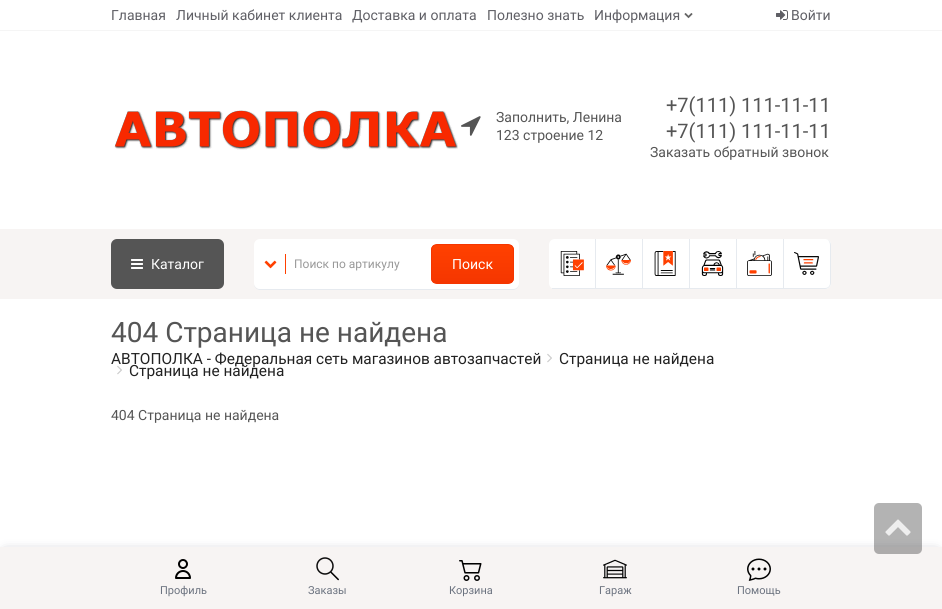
import math
import cairo

surface = cairo.ImageSurface(cairo.Format.RGB24, 942, 609)
ctx = cairo.Context(surface)
options = cairo.FontOptions()
options.set_hint_metrics(cairo.HintMetrics.OFF)
options.set_hint_style(cairo.HintStyle.NONE)
ctx.set_font_options(options)
ctx.set_miter_limit(4)


def ink(r, g, b):
    ctx.set_source_rgb(r / 255, g / 255, b / 255)


def write(x, y, s, family, size, color, bold=False, italic=False):
    ctx.select_font_face(family, cairo.FontSlant.ITALIC if italic else cairo.FontSlant.NORMAL, cairo.FontWeight.BOLD if bold else cairo.FontWeight.NORMAL)
    ctx.set_font_size(size)
    ink(*color)
    ctx.move_to(x, y)
    ctx.show_text(s)


def block(x, y, w, h, *color):
    ink(*color)
    ctx.rectangle(x, y, w, h)
    ctx.fill()


def round_path(x, y, w, h, r):
    ctx.new_sub_path()
    for i, (u, v) in enumerate([(x + w - r, y + h - r), (x + r, y + h - r), (x + r, y + r), (x + w - r, y + r)]):
        ctx.arc(u, v, r, i * math.pi / 2, (i + 1) * math.pi / 2)
    ctx.close_path()


def blur_box(x, y, w, h, r, blur, alpha):
    ctx.push_group_with_content(cairo.Content.ALPHA)
    ctx.set_operator(cairo.Operator.SOURCE)
    for i in range(15, -16, -2):
        e = blur * i / 6
        if min(w, h) + 2 * e > 0:
            ctx.set_source_rgba(0, 0, 0, alpha * math.erfc((i - 1) / 8.5) / 2)
            round_path(x - e, y - e, w + 2 * e, h + 2 * e, max(0, min(r + e + blur * .6, min(w, h) / 2 + e)))
            ctx.fill()
    ctx.mask(ctx.pop_group())


def paste(path, x, y, w, h):
    ctx.save()
    ctx.set_source_surface(cairo.ImageSurface.create_from_png(path), x, y)
    ctx.rectangle(x, y, w, h)
    ctx.fill()
    ctx.restore()


s1 = dict(family="Roboto", size=14, color=(95, 95, 101))
s2 = dict(family="Roboto", size=14, color=(85, 85, 85))
s3 = dict(family="Roboto", size=20, color=(85, 85, 85))
s4 = dict(family="Roboto", size=14, color=(255, 255, 255))
s5 = dict(family="Roboto", size=12, color=(153, 153, 153))
s6 = dict(family="Roboto", size=28, color=(85, 85, 85))
s7 = dict(family="Roboto", size=15.4, color=(34, 34, 34))
s8 = dict(family="Roboto", size=11, color=(108, 115, 128))

ink(255, 255, 255)
ctx.paint()
block(0, 30, 942, 1, 245, 245, 245)
write(111, 20, "Главная", **s1)
write(176, 20, "Личный кабинет клиента", **s1)
write(352, 20, "Доставка и оплата", **s1)
write(487, 20, "Полезно знать", **s1)
write(594, 20, "Информация", **s1)
paste("pic1.png", 684, 13, 9, 6)
paste("pic2.png", 776, 10, 12, 10)
write(791, 20, "Войти", **s1)
paste("pic3.png", 114, 110, 344, 40)
paste("pic4.png", 461, 116, 20, 20)
write(496, 122, "Заполнить, Ленина", **s2)
write(496, 140, "123 строение 12", **s2)
write(666, 112, "+7(111) 111-11-11", **s3)
write(666, 138, "+7(111) 111-11-11", **s3)
write(650, 157, "Заказать обратный звонок", **s2)
block(0, 229, 942, 70, 247, 244, 243)
ink(85, 85, 85)
round_path(111, 239, 113, 50, 6)
ctx.fill()
paste("pic5.png", 131, 259, 12, 10)
write(151, 269, "Каталог", **s4)
ink(230, 234, 239)
ctx.new_path()
ctx.move_to(254, 283)
ctx.line_to(254, 284)
ctx.curve_to(254, 287, 257, 290, 260, 290)
ctx.line_to(513, 290)
ctx.curve_to(516, 290, 519, 287, 519, 284)
ctx.line_to(519, 283)
ctx.curve_to(519, 286, 516, 289, 513, 289)
ctx.line_to(260, 289)
ctx.curve_to(257, 289, 254, 286, 254, 283)
ctx.close_path()
ctx.fill()
ink(255, 255, 255)
round_path(254, 239, 265, 50, 6)
ctx.fill()
paste("pic6.png", 264, 260, 13, 9)
block(285, 254, 1, 20, 255, 64, 0)
write(294, 268, "Поиск по артикулу", **s5)
ctx.save()
round_path(431, 244, 83, 40, 6)
ctx.clip()
gradient = cairo.LinearGradient(473, 245, 473, 283)
gradient.add_color_stop_rgba(0.05, 1, 0.251, 0, 1)
gradient.add_color_stop_rgba(1, 0.961, 0.212, 0, 1)
ctx.set_source(gradient)
ctx.rectangle(431, 245, 83, 38)
ctx.fill()
ctx.restore()
round_path(431.5, 244.5, 82, 39, 5.5)
ink(245, 54, 0)
ctx.set_line_width(1)
ctx.stroke()
write(452, 269, "Поиск", **s4)
ctx.new_path()
ctx.move_to(555, 239)
ctx.line_to(596, 239)
ctx.line_to(596, 289)
ctx.line_to(555, 289)
ctx.curve_to(551.5, 289, 549, 286.5, 549, 283)
ctx.line_to(549, 245)
ctx.curve_to(549, 241.5, 551.5, 239, 555, 239)
ctx.close_path()
ctx.fill()
block(595, 239, 1, 50, 230, 234, 239)
block(552, 288, 44, 1, 230, 234, 239)
paste("pic7.png", 560, 251, 24, 25)
block(596, 239, 46, 49, 255, 255, 255)
block(642, 239, 1, 50, 230, 234, 239)
block(596, 288, 47, 1, 230, 234, 239)
paste("pic8.png", 606, 253, 25, 22)
block(643, 239, 46, 49, 255, 255, 255)
block(689, 239, 1, 50, 230, 234, 239)
block(643, 288, 47, 1, 230, 234, 239)
paste("pic9.png", 654, 251, 22, 25)
block(690, 239, 46, 49, 255, 255, 255)
block(736, 239, 1, 50, 230, 234, 239)
block(690, 288, 47, 1, 230, 234, 239)
paste("pic10.png", 701, 251, 23, 25)
block(737, 239, 46, 49, 255, 255, 255)
block(783, 239, 1, 50, 230, 234, 239)
block(737, 288, 47, 1, 230, 234, 239)
paste("pic11.png", 747, 251, 25, 25)
ink(255, 255, 255)
ctx.new_path()
ctx.move_to(784, 239)
ctx.line_to(825, 239)
ctx.curve_to(828.5, 239, 831, 241.5, 831, 245)
ctx.line_to(831, 283)
ctx.curve_to(831, 286.5, 828.5, 289, 825, 289)
ctx.line_to(784, 289)
ctx.close_path()
ctx.fill()
ink(230, 234, 239)
ctx.set_fill_rule(cairo.FillRule.EVEN_ODD)
ctx.new_path()
ctx.move_to(784, 239)
ctx.line_to(825, 239)
ctx.curve_to(828, 239, 831, 242, 831, 245)
ctx.line_to(831, 283)
ctx.curve_to(831, 286, 828, 289, 825, 289)
ctx.line_to(784, 289)
ctx.close_path()
ctx.move_to(784, 239)
ctx.line_to(825, 239)
ctx.curve_to(828, 239, 830, 242, 830, 245)
ctx.line_to(830, 283)
ctx.curve_to(830, 286, 828, 288, 825, 288)
ctx.line_to(784, 288)
ctx.close_path()
ctx.fill()
paste("pic12.png", 794, 252, 25, 23)
write(111, 342, "404 Страница не найдена", **s6)
write(111, 364, "АВТОПОЛКА - Федеральная сеть магазинов автозапчастей", **s7)
paste("pic13.png", 547, 353, 5, 10)
write(559, 364, "Страница не найдена", **s7)
paste("pic13.png", 117, 365, 5, 10)
write(129, 376, "Страница не найдена", **s7)
write(111, 420, "404 Страница не найдена", **s2)
ink(108, 115, 128)
blur_box(6, 554, 930, 50, 0, 6, 1)
block(0, 547, 942, 62, 247, 244, 243)
ctx.set_source_rgba(0, 0, 0, 0.3)
round_path(874, 503, 48, 51, 5)
ctx.fill()
paste("pic14.png", 885, 519, 26, 17)
paste("pic15.png", 175, 559, 16, 20)
write(160, 594, "Профиль", **s8)
paste("pic16.png", 316, 557, 23, 24)
write(308, 594, "Заказы", **s8)
paste("pic17.png", 459, 560, 23, 21)
write(449, 594, "Корзина", **s8)
paste("pic18.png", 603, 559, 24, 20)
write(599, 594, "Гараж", **s8)
paste("pic19.png", 747, 558, 24, 23)
write(737, 594, "Помощь", **s8)
surface.write_to_png("screenshot.png")
